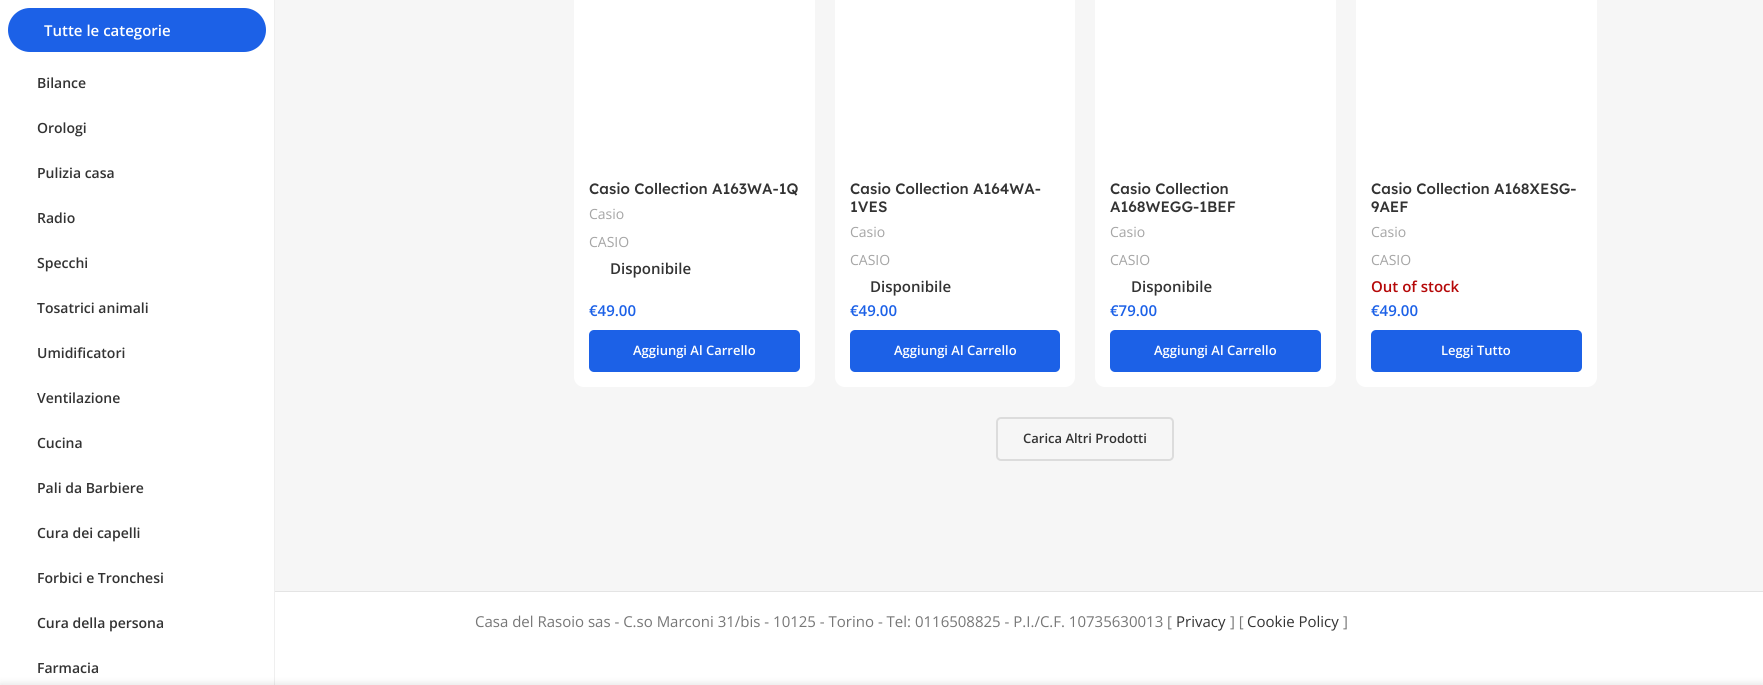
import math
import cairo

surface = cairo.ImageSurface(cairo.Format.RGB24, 1763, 685)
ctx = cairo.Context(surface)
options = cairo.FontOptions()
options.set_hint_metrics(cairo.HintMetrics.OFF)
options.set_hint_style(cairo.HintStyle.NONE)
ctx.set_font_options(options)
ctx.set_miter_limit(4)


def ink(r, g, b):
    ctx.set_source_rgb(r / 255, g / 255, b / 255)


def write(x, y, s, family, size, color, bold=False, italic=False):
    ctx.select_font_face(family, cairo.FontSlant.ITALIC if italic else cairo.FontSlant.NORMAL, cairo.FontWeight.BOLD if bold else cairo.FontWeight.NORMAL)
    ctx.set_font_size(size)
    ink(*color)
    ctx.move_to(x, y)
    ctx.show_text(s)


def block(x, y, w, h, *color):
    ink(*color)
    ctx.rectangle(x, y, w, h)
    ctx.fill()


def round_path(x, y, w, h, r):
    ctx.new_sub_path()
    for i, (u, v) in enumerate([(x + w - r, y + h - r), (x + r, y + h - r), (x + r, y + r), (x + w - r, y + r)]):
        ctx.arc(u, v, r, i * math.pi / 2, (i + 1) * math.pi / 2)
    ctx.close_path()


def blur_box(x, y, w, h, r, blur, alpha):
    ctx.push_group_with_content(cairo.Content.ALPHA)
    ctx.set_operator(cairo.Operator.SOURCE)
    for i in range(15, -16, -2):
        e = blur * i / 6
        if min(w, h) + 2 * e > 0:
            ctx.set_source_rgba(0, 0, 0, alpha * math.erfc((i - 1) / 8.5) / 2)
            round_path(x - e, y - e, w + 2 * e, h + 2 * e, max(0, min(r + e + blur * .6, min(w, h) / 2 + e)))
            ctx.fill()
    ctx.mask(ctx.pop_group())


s1 = dict(family="Open Sans SemiBold", size=15, color=(255, 255, 255))
s2 = dict(family="Open Sans SemiBold", size=14, color=(51, 51, 51))
s3 = dict(family="Lexend Deca Medium", size=15, color=(51, 51, 51))
s4 = dict(family="Open Sans", size=14, color=(165, 165, 165))
s5 = dict(family="Open Sans SemiBold", size=15, color=(51, 51, 51))
s6 = dict(family="Open Sans SemiBold", size=15, color=(28, 97, 231))
s7 = dict(family="Open Sans SemiBold", size=13, color=(255, 255, 255))
s8 = dict(family="Open Sans SemiBold", size=15, color=(181, 8, 8))
s9 = dict(family="Open Sans SemiBold", size=13, color=(51, 51, 51))
s10 = dict(family="Open Sans", size=15, color=(119, 119, 119))
s11 = dict(family="Open Sans", size=15, color=(51, 51, 51))

ink(255, 255, 255)
ctx.paint()
block(274, 0, 1, 685, 239, 239, 239)
ink(28, 97, 231)
round_path(8, 8, 258, 44, 22)
ctx.fill()
write(44, 36, "Tutte le categorie", **s1)
write(37, 88, "Bilance", **s2)
write(37, 133, "Orologi", **s2)
write(37, 178, "Pulizia casa", **s2)
write(37, 223, "Radio", **s2)
write(37, 268, "Specchi", **s2)
write(37, 313, "Tosatrici animali", **s2)
write(37, 358, "Umidificatori", **s2)
write(37, 403, "Ventilazione", **s2)
write(37, 448, "Cucina", **s2)
write(37, 493, "Pali da Barbiere", **s2)
write(37, 538, "Cura dei capelli", **s2)
write(37, 583, "Forbici e Tronchesi", **s2)
write(37, 628, "Cura della persona", **s2)
write(37, 673, "Farmacia", **s2)
block(275, 0, 1488, 591, 246, 246, 246)
ink(255, 255, 255)
round_path(574, -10, 241, 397, 10)
ctx.fill()
write(589, 194, "Casio Collection A163WA-1Q", **s3)
write(589, 219, "Casio", **s4)
write(589, 247, "CASIO", **s4)
write(610, 274, "Disponibile", **s5)
write(589, 316, "€49.00", **s6)
round_path(589, 330, 211, 42, 5)
ctx.fill()
write(633, 355, "Aggiungi Al Carrello", **s7)
round_path(835, -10, 240, 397, 10)
ctx.fill()
write(850, 194, "Casio Collection A164WA-", **s3)
write(850, 212, "1VES", **s3)
write(850, 237, "Casio", **s4)
write(850, 265, "CASIO", **s4)
write(870, 292, "Disponibile", **s5)
write(850, 316, "€49.00", **s6)
round_path(850, 330, 210, 42, 5)
ctx.fill()
write(894, 355, "Aggiungi Al Carrello", **s7)
round_path(1095, -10, 241, 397, 10)
ctx.fill()
write(1110, 194, "Casio Collection", **s3)
write(1110, 212, "A168WEGG-1BEF", **s3)
write(1110, 237, "Casio", **s4)
write(1110, 265, "CASIO", **s4)
write(1131, 292, "Disponibile", **s5)
write(1110, 316, "€79.00", **s6)
round_path(1110, 330, 211, 42, 5)
ctx.fill()
write(1154, 355, "Aggiungi Al Carrello", **s7)
round_path(1356, -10, 241, 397, 10)
ctx.fill()
write(1371, 194, "Casio Collection A168XESG-", **s3)
write(1371, 212, "9AEF", **s3)
write(1371, 237, "Casio", **s4)
write(1371, 265, "CASIO", **s4)
write(1371, 292, "Out of stock", **s8)
write(1371, 316, "€49.00", **s6)
round_path(1371, 330, 211, 42, 5)
ctx.fill()
write(1441, 355, "Leggi Tutto", **s7)
round_path(997, 418, 176, 42, 4)
ink(220, 220, 220)
ctx.stroke()
write(1023, 443, "Carica Altri Prodotti", **s9)
block(275, 591, 1488, 1, 228, 228, 228)
write(475, 627, "Casa del Rasoio sas - C.so Marconi 31/bis - 10125 - Torino - Tel: 0116508825 - P.I./C.F. 10735630013 [", **s10)
write(1176, 627, "Privacy", **s11)
write(1230, 627, "] [", **s10)
write(1247, 627, "Cookie Policy", **s11)
write(1343, 627, "]", **s10)
ink(0, 0, 0)
blur_box(0, 685, 1763, 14, 0, 4.5, 0.14)
surface.write_to_png("screenshot.png")
